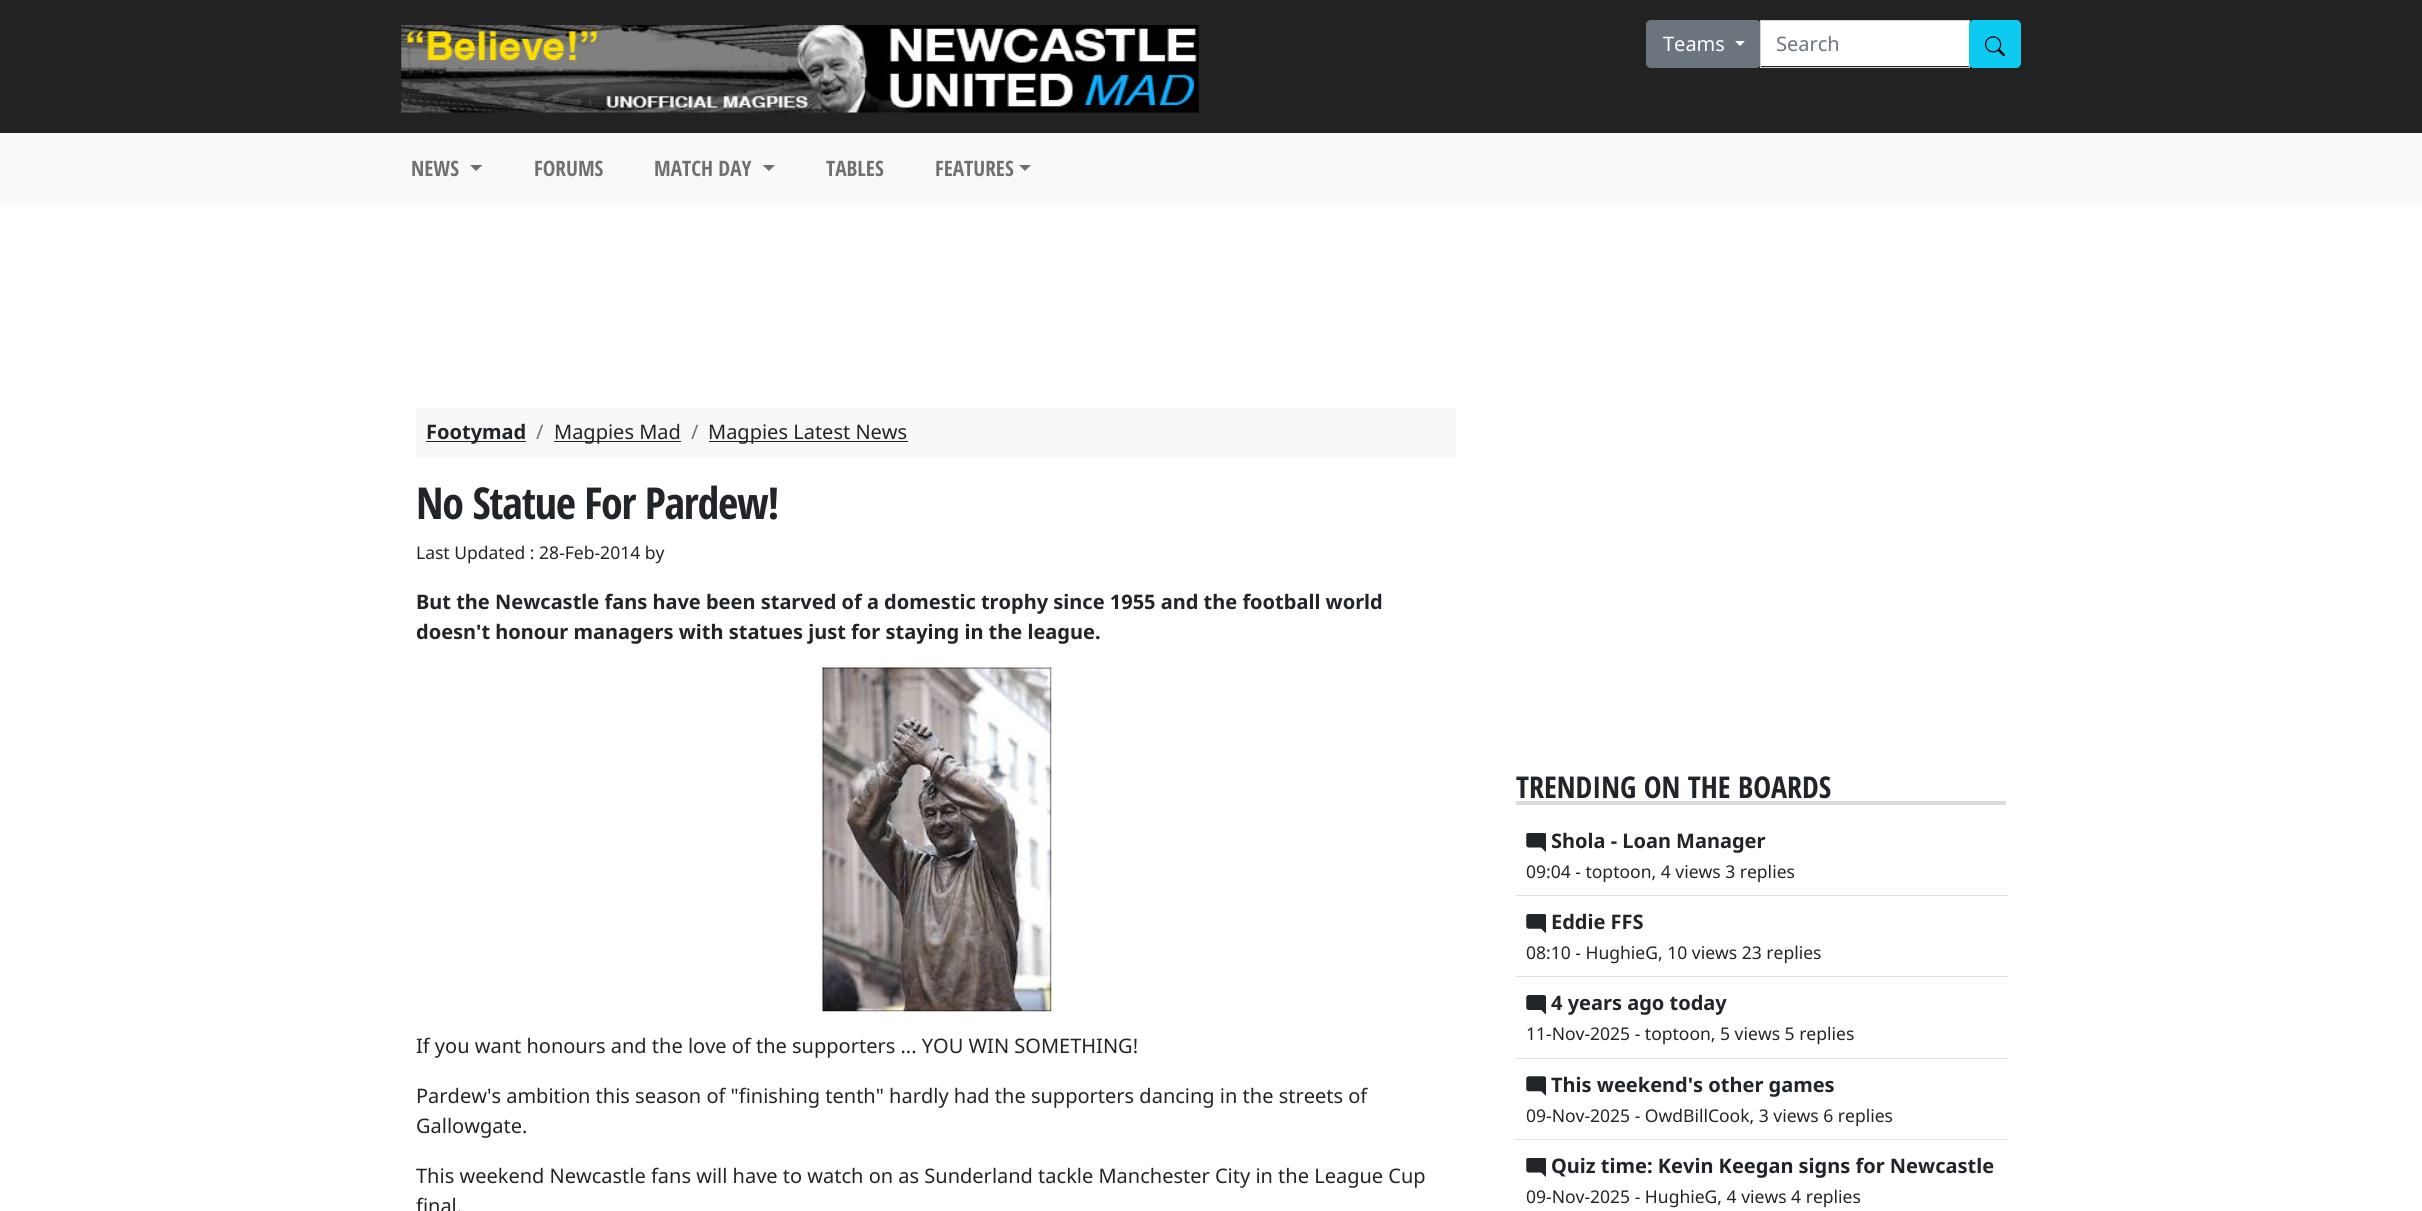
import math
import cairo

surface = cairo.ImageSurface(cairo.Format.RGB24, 2422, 1211)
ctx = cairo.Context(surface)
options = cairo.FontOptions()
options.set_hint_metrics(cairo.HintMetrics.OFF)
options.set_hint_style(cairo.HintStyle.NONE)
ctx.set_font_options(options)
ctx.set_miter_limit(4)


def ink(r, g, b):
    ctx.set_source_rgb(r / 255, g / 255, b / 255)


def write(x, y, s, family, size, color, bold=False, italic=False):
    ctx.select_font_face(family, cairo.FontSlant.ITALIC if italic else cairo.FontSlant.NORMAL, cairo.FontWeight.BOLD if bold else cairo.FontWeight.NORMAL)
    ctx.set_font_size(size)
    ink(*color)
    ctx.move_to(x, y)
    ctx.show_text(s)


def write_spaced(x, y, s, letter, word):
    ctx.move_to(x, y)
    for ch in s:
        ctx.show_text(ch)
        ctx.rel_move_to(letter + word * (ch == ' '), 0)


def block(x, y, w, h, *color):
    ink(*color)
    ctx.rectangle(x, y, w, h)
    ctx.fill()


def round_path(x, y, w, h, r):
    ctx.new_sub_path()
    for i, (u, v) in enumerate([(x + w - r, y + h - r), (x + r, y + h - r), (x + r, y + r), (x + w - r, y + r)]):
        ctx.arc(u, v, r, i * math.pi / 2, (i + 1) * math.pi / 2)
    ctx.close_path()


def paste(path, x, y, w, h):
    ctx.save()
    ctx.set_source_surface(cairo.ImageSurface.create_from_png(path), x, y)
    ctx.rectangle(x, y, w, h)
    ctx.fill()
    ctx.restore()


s1 = dict(family="Noto Sans", size=20, color=(255, 255, 255))
s2 = dict(family="Noto Sans", size=20, color=(108, 117, 125))
s3 = dict(family="Open Sans Condensed", size=21.25, color=(112, 112, 113), bold=True)
s4 = dict(family="Noto Sans", size=20, color=(33, 37, 41), bold=True)
s5 = dict(family="Noto Sans", size=20, color=(33, 37, 41))
s6 = dict(family="Noto Sans", size=17.5, color=(33, 37, 41))
s7 = dict(family="Open Sans Condensed", size=30, color=(33, 37, 41), bold=True)

ink(255, 255, 255)
ctx.paint()
block(0, 0, 2422, 133, 34, 34, 34)
paste("pic1.png", 401, 25, 798, 88)
ink(108, 117, 125)
round_path(1646.5, 20.5, 114, 47, 4.5)
ctx.fill_preserve()
ctx.set_line_width(1)
ctx.stroke()
write(1663, 51, "Teams", **s1)
ctx.new_path()
ctx.move_to(1735, 41)
ctx.line_to(1745, 41)
ctx.line_to(1740, 46)
ctx.close_path()
ctx.fill()
block(1761, 21, 208, 45, 255, 255, 255)
ctx.rectangle(1760.5, 20.5, 209, 47)
ink(206, 212, 218)
ctx.stroke()
write(1776, 51, "Search", **s2)
ink(13, 202, 240)
round_path(1969.5, 20.5, 51, 47, 4.5)
ctx.fill_preserve()
ctx.stroke()
paste("pic2.png", 1985, 36, 20, 20)
block(0, 133, 2422, 72, 248, 249, 250)
write(411, 176, "NEWS", **s3)
ctx.new_path()
ctx.move_to(470, 165)
ctx.line_to(482.5, 165)
ctx.line_to(476, 171)
ctx.close_path()
ctx.fill()
write(534, 176, "FORUMS", **s3)
write(654, 176, "MATCH DAY", **s3)
ctx.new_path()
ctx.move_to(762.5, 165)
ctx.line_to(775, 165)
ctx.line_to(769, 171)
ctx.close_path()
ctx.fill()
write(826, 176, "TABLES", **s3)
write(935, 176, "FEATURES", **s3)
ctx.new_path()
ctx.move_to(1019, 165)
ctx.line_to(1031, 165)
ctx.line_to(1025, 171)
ctx.close_path()
ctx.fill()
block(416, 408, 1040, 50, 248, 248, 248)
block(426, 441, 100, 1, 33, 37, 41)
write(426, 439, "Footymad", **s4)
write(536, 439, "/", **s2)
block(554, 441, 127, 1, 33, 37, 41)
write(554, 439, "Magpies Mad", **s5)
write(691, 439, "/", **s2)
block(709, 441, 199, 1, 33, 37, 41)
write(708, 439, "Magpies Latest News", **s5)
ctx.select_font_face("Open Sans Condensed", cairo.FontSlant.NORMAL, cairo.FontWeight.BOLD)
ctx.set_font_size(44)
write_spaced(416, 519, "No Statue For Pardew!", -1.25, 0)
write(416, 559, "Last Updated : 28-Feb-2014 by", **s6)
write(416, 609, "But the Newcastle fans have been starved of a domestic trophy since 1955 and the football world", **s4)
write(416, 639, "doesn't honour managers with statues just for staying in the league.", **s4)
paste("pic3.png", 822, 667, 230, 345)
write(416, 1053, "If you want honours and the love of the supporters ... YOU WIN SOMETHING!", **s5)
write(416, 1103, "Pardew's ambition this season of \"finishing tenth\" hardly had the supporters dancing in the streets of", **s5)
write(416, 1133, "Gallowgate.", **s5)
write(416, 1183, "This weekend Newcastle fans will have to watch on as Sunderland tackle Manchester City in the League Cup", **s5)
write(416, 1213, "final.", **s5)
block(1516, 801, 490, 4, 221, 221, 221)
write(1516, 798, "TRENDING ON THE BOARDS", **s7)
block(1516, 895, 492, 1, 222, 226, 230)
paste("pic4.png", 1526, 833, 20, 19)
write(1551, 848, "Shola - Loan Manager", **s4)
write(1526, 878, "09:04 - toptoon, 4 views 3 replies", **s6)
block(1516, 976, 492, 1, 222, 226, 230)
paste("pic5.png", 1526, 914, 20, 19)
write(1551, 929, "Eddie FFS", **s4)
write(1526, 959, "08:10 - HughieG, 10 views 23 replies", **s6)
block(1516, 1058, 492, 1, 222, 226, 230)
paste("pic6.png", 1526, 995, 20, 20)
write(1551, 1010, "4 years ago today", **s4)
write(1526, 1040, "11-Nov-2025 - toptoon, 5 views 5 replies", **s6)
block(1516, 1139, 492, 1, 222, 226, 230)
paste("pic7.png", 1526, 1076, 20, 20)
write(1551, 1092, "This weekend's other games", **s4)
write(1526, 1122, "09-Nov-2025 - OwdBillCook, 3 views 6 replies", **s6)
paste("pic4.png", 1526, 1158, 20, 19)
write(1551, 1173, "Quiz time: Kevin Keegan signs for Newcastle", **s4)
write(1526, 1203, "09-Nov-2025 - HughieG, 4 views 4 replies", **s6)
surface.write_to_png("screenshot.png")
